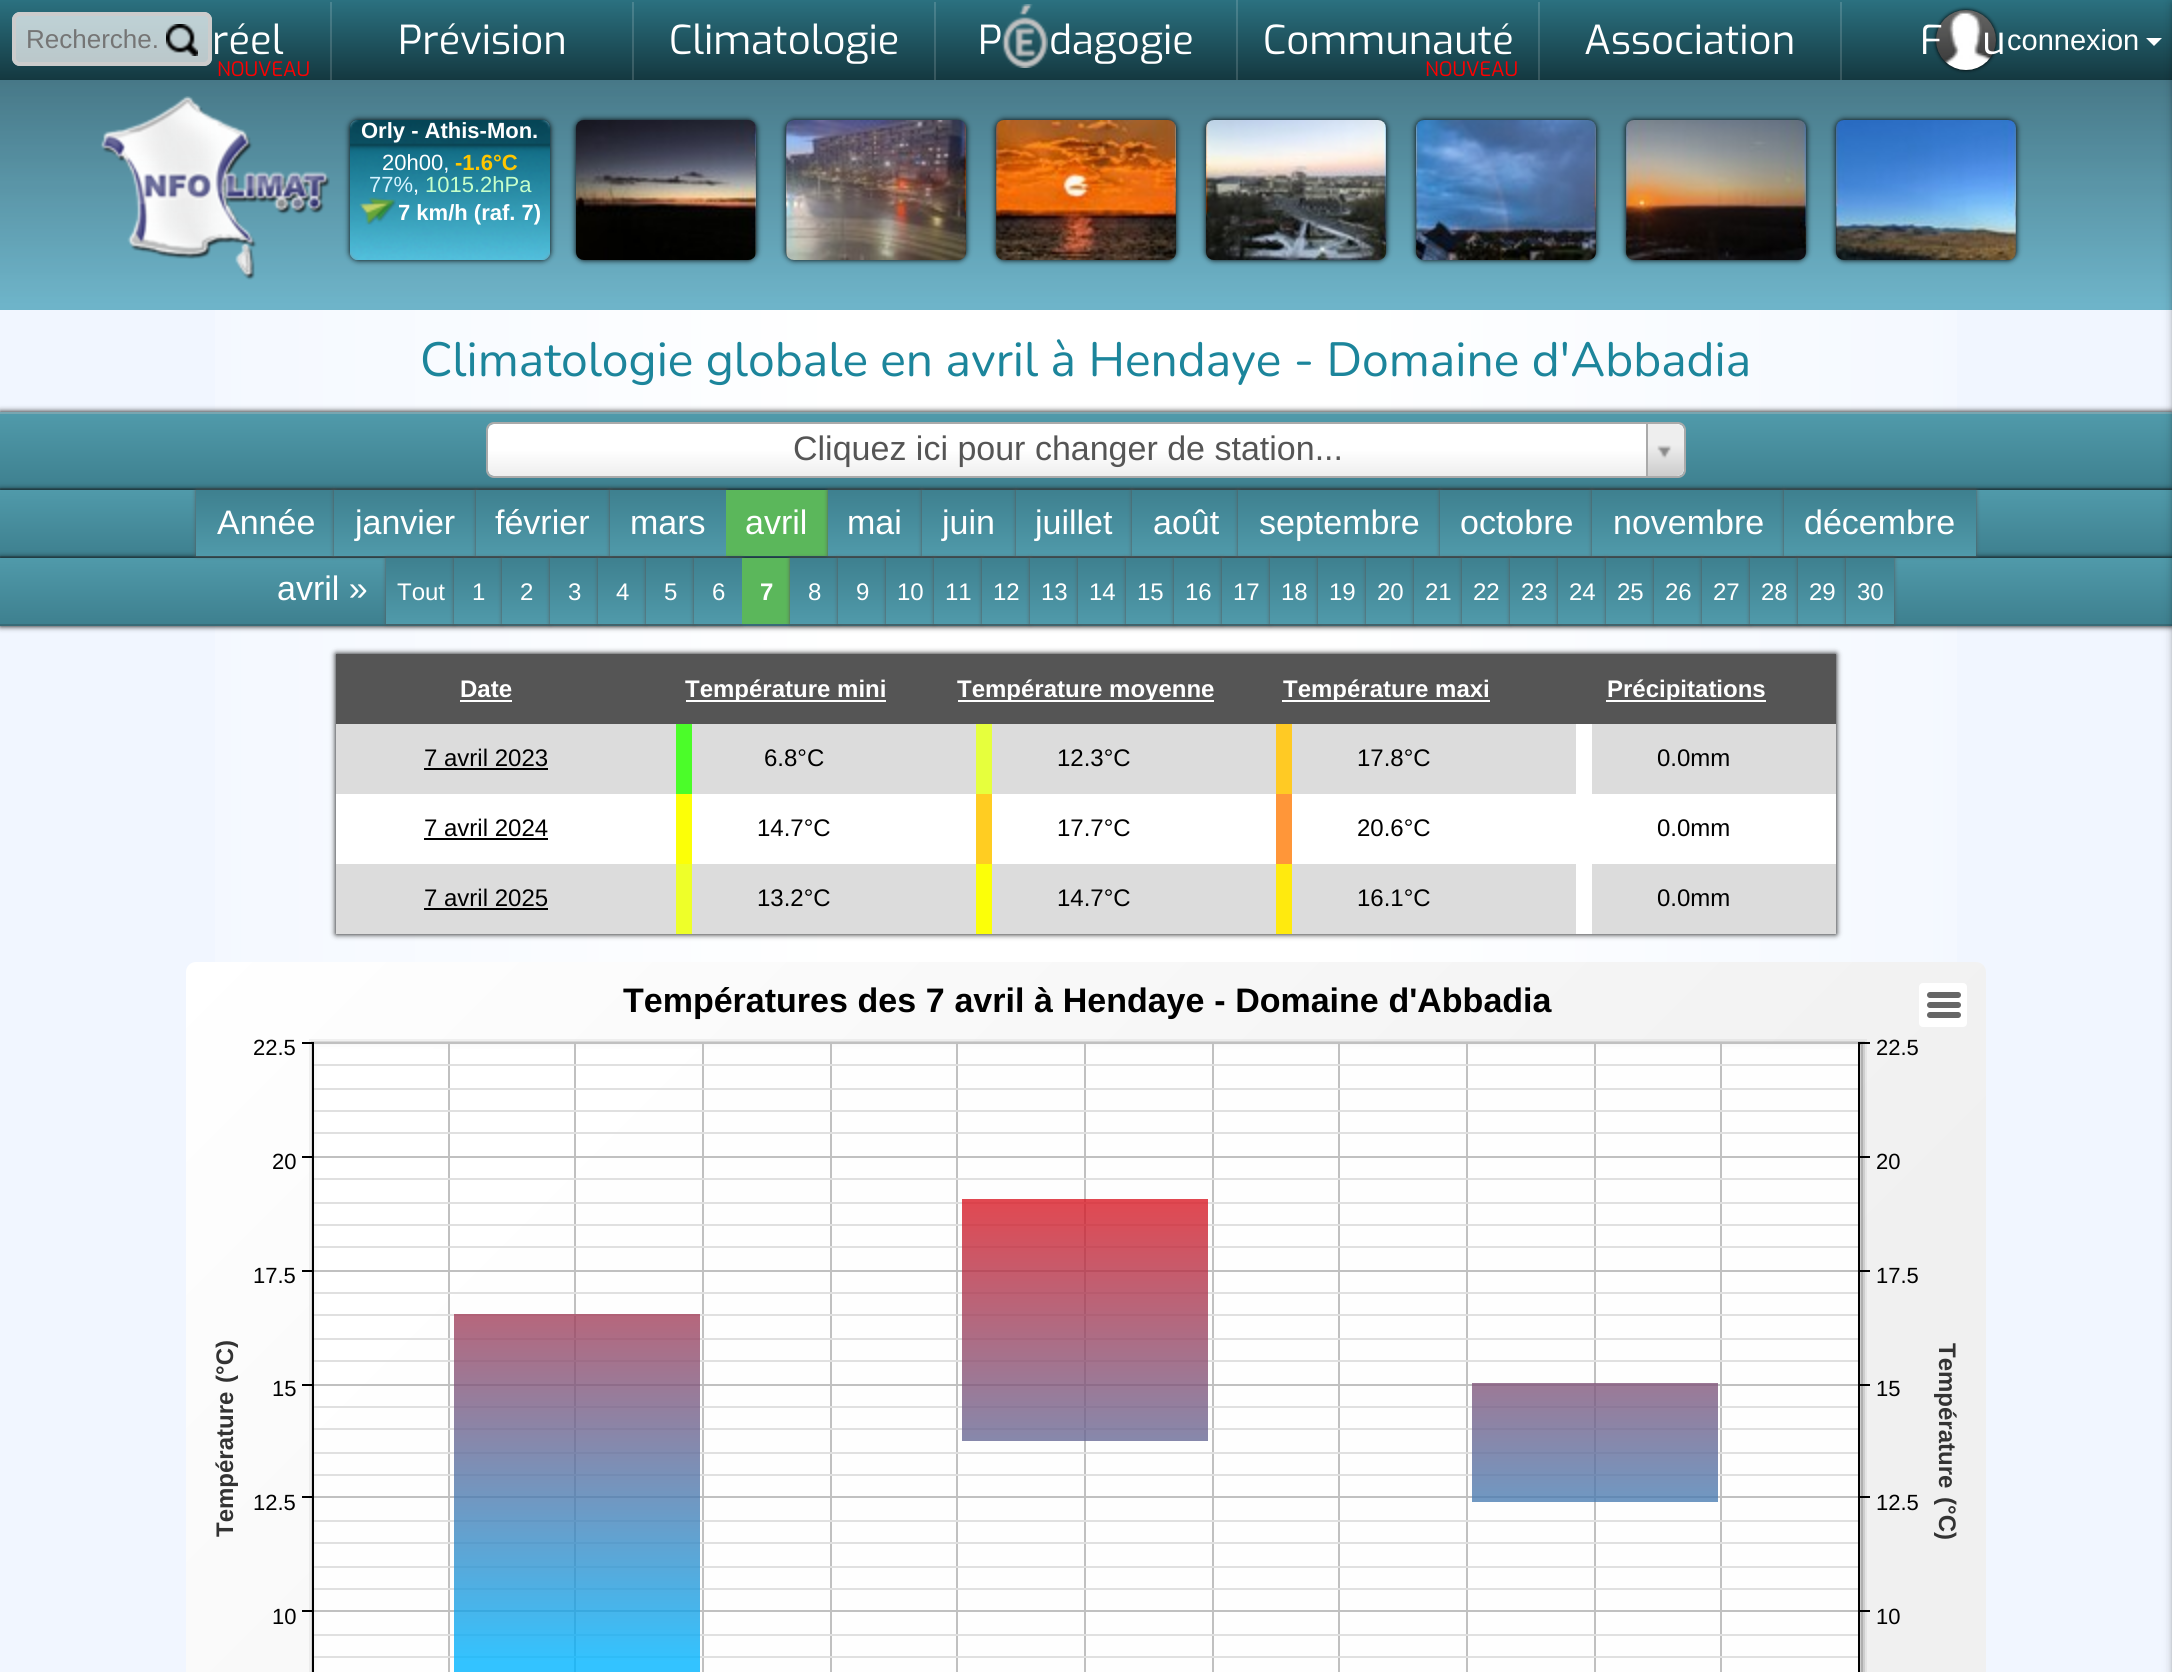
import math
import cairo

surface = cairo.ImageSurface(cairo.Format.RGB24, 2172, 1672)
ctx = cairo.Context(surface)
options = cairo.FontOptions()
options.set_hint_metrics(cairo.HintMetrics.OFF)
options.set_hint_style(cairo.HintStyle.NONE)
ctx.set_font_options(options)
ctx.set_miter_limit(4)


def ink(r, g, b):
    ctx.set_source_rgb(r / 255, g / 255, b / 255)


def write(x, y, s, family, size, color, bold=False, italic=False):
    ctx.select_font_face(family, cairo.FontSlant.ITALIC if italic else cairo.FontSlant.NORMAL, cairo.FontWeight.BOLD if bold else cairo.FontWeight.NORMAL)
    ctx.set_font_size(size)
    ink(*color)
    ctx.move_to(x, y)
    ctx.show_text(s)


def write_spaced(x, y, s, letter, word):
    ctx.move_to(x, y)
    for ch in s:
        ctx.show_text(ch)
        ctx.rel_move_to(letter + word * (ch == ' '), 0)


def block(x, y, w, h, *color):
    ink(*color)
    ctx.rectangle(x, y, w, h)
    ctx.fill()


def round_path(x, y, w, h, r):
    ctx.new_sub_path()
    for i, (u, v) in enumerate([(x + w - r, y + h - r), (x + r, y + h - r), (x + r, y + r), (x + w - r, y + r)]):
        ctx.arc(u, v, r, i * math.pi / 2, (i + 1) * math.pi / 2)
    ctx.close_path()


def blur_box(x, y, w, h, r, blur, alpha):
    ctx.push_group_with_content(cairo.Content.ALPHA)
    ctx.set_operator(cairo.Operator.SOURCE)
    for i in range(15, -16, -2):
        e = blur * i / 6
        if min(w, h) + 2 * e > 0:
            ctx.set_source_rgba(0, 0, 0, alpha * math.erfc((i - 1) / 8.5) / 2)
            round_path(x - e, y - e, w + 2 * e, h + 2 * e, max(0, min(r + e + blur * .6, min(w, h) / 2 + e)))
            ctx.fill()
    ctx.mask(ctx.pop_group())


def paste(path, x, y, w, h):
    ctx.save()
    ctx.set_source_surface(cairo.ImageSurface.create_from_png(path), x, y)
    ctx.rectangle(x, y, w, h)
    ctx.fill()
    ctx.restore()


s1 = dict(family="Liberation Sans", size=26, color=(117, 117, 117))
s2 = dict(family="Exo", size=40, color=(255, 255, 255))
s3 = dict(family="Exo", size=20, color=(255, 0, 0))
s4 = dict(family="Liberation Sans", size=22, color=(255, 255, 255), bold=True)
s5 = dict(family="Liberation Sans", size=22, color=(255, 255, 255))
s6 = dict(family="Liberation Sans", size=22, color=(255, 198, 0), bold=True)
s7 = dict(family="Liberation Sans", size=22, color=(212, 243, 255))
s8 = dict(family="Liberation Sans", size=22, color=(197, 255, 202))
s9 = dict(family="Liberation Sans", size=29, color=(255, 255, 255))
s10 = dict(family="Nunito", size=48, color=(28, 133, 155))
s11 = dict(family="Liberation Sans", size=34, color=(85, 85, 85))
s12 = dict(family="Liberation Sans", size=34, color=(255, 255, 255))
s13 = dict(family="Liberation Sans", size=24, color=(255, 255, 255))
s14 = dict(family="Liberation Sans", size=24, color=(255, 255, 255), bold=True)
s15 = dict(family="Liberation Sans", size=24, color=(0, 0, 0))
s16 = dict(family="Liberation Sans", size=22, color=(0, 0, 0))

ink(255, 255, 255)
ctx.paint()
gradient = cairo.LinearGradient(1086, 0, 1086, 80)
gradient.add_color_stop_rgba(0, 0.169, 0.443, 0.502, 1)
gradient.add_color_stop_rgba(1, 0.078, 0.22, 0.251, 1)
ctx.set_source(gradient)
ctx.rectangle(0, 0, 2172, 80)
ctx.fill()
ctx.set_source_rgba(1, 1, 1, 0.7)
round_path(12, 12, 200, 54, 8)
ctx.fill()
paste("pic1.png", 166, 24, 32, 32)
round_path(14, 14, 196, 50, 6)
ink(204, 204, 204)
ctx.set_line_width(4)
ctx.stroke()
write(26, 48, "Recherche.", **s1)
ctx.set_source_rgba(1, 1, 1, 0.15)
ctx.rectangle(330, 2, 2, 80)
ctx.fill()
write(212, 54, "réel", **s2)
write(217, 76, "NOUVEAU", **s3)
ctx.set_source_rgba(1, 1, 1, 0.15)
ctx.rectangle(632, 2, 2, 80)
ctx.fill()
write(398, 54, "Prévision", **s2)
ctx.set_source_rgba(1, 1, 1, 0.15)
ctx.rectangle(934, 2, 2, 80)
ctx.fill()
write(669, 54, "Climatologie", **s2)
ctx.set_source_rgba(1, 1, 1, 0.15)
ctx.rectangle(1236, 0, 2, 80)
ctx.fill()
write(978, 54, "P", **s2)
paste("pic2.png", 1002, 4, 46, 64)
write(1049, 54, "dagogie", **s2)
ctx.set_source_rgba(1, 1, 1, 0.15)
ctx.rectangle(1538, 2, 2, 80)
ctx.fill()
write(1263, 54, "Communauté", **s2)
write(1425, 76, "NOUVEAU", **s3)
ctx.set_source_rgba(1, 1, 1, 0.15)
ctx.rectangle(1840, 2, 2, 80)
ctx.fill()
write(1584, 54, "Association", **s2)
ink(0, 0, 0)
blur_box(1936, 10, 60, 60, 30, 2, 1)
paste("pic14.png", 1936, 10, 60, 60)
write(1920, 54, "F", **s2)
write(1982, 54, "u", **s2)
paste("pic3.png", 0, 80, 2172, 230)
paste("pic4.png", 100, 96, 230, 184)
ctx.save()
ctx.set_fill_rule(cairo.FillRule.EVEN_ODD)
ctx.new_path()
ctx.move_to(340, 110)
ctx.line_to(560, 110)
ctx.line_to(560, 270)
ctx.line_to(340, 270)
ctx.close_path()
ctx.move_to(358, 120)
ctx.line_to(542, 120)
ctx.curve_to(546.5, 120, 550, 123.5, 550, 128)
ctx.line_to(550, 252)
ctx.curve_to(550, 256.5, 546.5, 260, 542, 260)
ctx.line_to(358, 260)
ctx.curve_to(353.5, 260, 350, 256.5, 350, 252)
ctx.line_to(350, 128)
ctx.curve_to(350, 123.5, 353.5, 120, 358, 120)
ctx.close_path()
ctx.clip()
ink(0, 0, 0)
blur_box(350, 120, 200, 140, 8, 3, 1)
ctx.restore()
paste("pic5.png", 350, 120, 200, 140)
write(361, 138, "Orly - Athis-Mon.", **s4)
write(382, 170, "20h00,", **s5)
write(455, 170, "-1.6°C", **s6)
write(369, 192, "77%", **s7)
write(413, 192, ",", **s5)
write(425, 192, "1015.2hPa", **s8)
paste("pic6.png", 359, 197, 37, 28)
write(398, 220, "7 km/h (raf. 7)", **s4)
ink(0, 0, 0)
blur_box(576, 120, 180, 140, 8, 3, 1)
paste("pic7.png", 576, 120, 180, 140)
blur_box(786, 120, 180, 140, 8, 3, 1)
paste("pic8.png", 786, 120, 180, 140)
blur_box(996, 120, 180, 140, 8, 3, 1)
paste("pic9.png", 996, 120, 180, 140)
blur_box(1206, 120, 180, 140, 8, 3, 1)
paste("pic10.png", 1206, 120, 180, 140)
blur_box(1416, 120, 180, 140, 8, 3, 1)
paste("pic11.png", 1416, 120, 180, 140)
blur_box(1626, 120, 180, 140, 8, 3, 1)
paste("pic12.png", 1626, 120, 180, 140)
blur_box(1836, 120, 180, 140, 8, 3, 1)
paste("pic13.png", 1836, 120, 180, 140)
write(2007, 50, "connexion", **s9)
ctx.new_path()
ctx.move_to(2146, 38)
ctx.line_to(2162, 38)
ctx.line_to(2154, 46)
ctx.close_path()
ctx.fill()
block(0, 310, 2172, 1362, 241, 246, 255)
paste("pic15.png", 215, 310, 1742, 652)
write(420, 376, "Climatologie globale en avril à Hendaye - Domaine d'Abbadia", **s10)
ink(0, 0, 0)
blur_box(0, 412, 2172, 78, 0, 3, 1)
gradient = cairo.LinearGradient(1086, 414, 1086, 488)
gradient.add_color_stop_rgba(0, 0.314, 0.604, 0.667, 1)
gradient.add_color_stop_rgba(1, 0.243, 0.502, 0.561, 1)
ctx.set_source(gradient)
ctx.rectangle(0, 414, 2172, 74)
ctx.fill()
block(0, 412, 2172, 2, 120, 166, 177)
block(0, 488, 2172, 2, 56, 107, 119)
gradient = cairo.LinearGradient(488, 476, 488, 424)
gradient.add_color_stop_rgba(0, 0.933, 0.933, 0.933, 1)
gradient.add_color_stop_rgba(0.5, 1, 1, 1, 1)
ctx.set_source(gradient)
round_path(488, 424, 1196, 52, 6)
ctx.fill()
round_path(487, 423, 1198, 54, 7)
ink(170, 170, 170)
ctx.set_line_width(2)
ctx.stroke()
write(793, 460, "Cliquez ici pour changer de station...", **s11)
gradient = cairo.LinearGradient(1648, 476, 1648, 424)
gradient.add_color_stop_rgba(0, 0.8, 0.8, 0.8, 1)
gradient.add_color_stop_rgba(0.6, 0.933, 0.933, 0.933, 1)
ctx.set_source(gradient)
ctx.new_path()
ctx.move_to(1646, 424)
ctx.line_to(1676, 424)
ctx.curve_to(1680.5, 424, 1684, 427.5, 1684, 432)
ctx.line_to(1684, 468)
ctx.curve_to(1684, 472.5, 1680.5, 476, 1676, 476)
ctx.line_to(1646, 476)
ctx.close_path()
ctx.fill()
block(1646, 424, 2, 52, 170, 170, 170)
paste("pic16.png", 1657, 445, 15, 14)
ink(0, 0, 0)
blur_box(0, 490, 2172, 68, 0, 3, 1)
gradient = cairo.LinearGradient(1086, 490, 1086, 556)
gradient.add_color_stop_rgba(0, 0.314, 0.604, 0.667, 1)
gradient.add_color_stop_rgba(1, 0.243, 0.502, 0.561, 1)
ctx.set_source(gradient)
ctx.rectangle(0, 490, 2172, 66)
ctx.fill()
block(0, 556, 2172, 2, 56, 107, 119)
ink(0, 0, 0)
blur_box(0, 558, 2172, 68, 0, 3, 1)
gradient = cairo.LinearGradient(1086, 558, 1086, 624)
gradient.add_color_stop_rgba(0, 0.314, 0.604, 0.667, 1)
gradient.add_color_stop_rgba(1, 0.243, 0.502, 0.561, 1)
ctx.set_source(gradient)
ctx.rectangle(0, 558, 2172, 66)
ctx.fill()
ink(85, 85, 85)
blur_box(196, 490, 138, 66, 0, 2, 1)
gradient = cairo.LinearGradient(265, 490, 265, 556)
gradient.add_color_stop_rgba(0, 0.243, 0.502, 0.561, 1)
gradient.add_color_stop_rgba(1, 0.314, 0.604, 0.667, 1)
ctx.set_source(gradient)
ctx.rectangle(196, 490, 138, 66)
ctx.fill()
write(217, 534, "Année", **s12)
ink(85, 85, 85)
blur_box(334, 490, 142, 66, 0, 2, 1)
gradient = cairo.LinearGradient(405, 490, 405, 556)
gradient.add_color_stop_rgba(0, 0.243, 0.502, 0.561, 1)
gradient.add_color_stop_rgba(1, 0.314, 0.604, 0.667, 1)
ctx.set_source(gradient)
ctx.rectangle(334, 490, 142, 66)
ctx.fill()
write(355, 534, "janvier", **s12)
ink(85, 85, 85)
blur_box(476, 490, 134, 66, 0, 2, 1)
gradient = cairo.LinearGradient(543, 490, 543, 556)
gradient.add_color_stop_rgba(0, 0.243, 0.502, 0.561, 1)
gradient.add_color_stop_rgba(1, 0.314, 0.604, 0.667, 1)
ctx.set_source(gradient)
ctx.rectangle(476, 490, 134, 66)
ctx.fill()
write(495, 534, "février", **s12)
ink(85, 85, 85)
blur_box(610, 490, 116, 66, 0, 2, 1)
gradient = cairo.LinearGradient(668, 490, 668, 556)
gradient.add_color_stop_rgba(0, 0.243, 0.502, 0.561, 1)
gradient.add_color_stop_rgba(1, 0.314, 0.604, 0.667, 1)
ctx.set_source(gradient)
ctx.rectangle(610, 490, 116, 66)
ctx.fill()
write(630, 534, "mars", **s12)
block(726, 490, 102, 66, 91, 183, 91)
write(745, 534, "avril", **s12)
ink(85, 85, 85)
blur_box(828, 490, 94, 66, 0, 2, 1)
gradient = cairo.LinearGradient(875, 490, 875, 556)
gradient.add_color_stop_rgba(0, 0.243, 0.502, 0.561, 1)
gradient.add_color_stop_rgba(1, 0.314, 0.604, 0.667, 1)
ctx.set_source(gradient)
ctx.rectangle(828, 490, 94, 66)
ctx.fill()
write(847, 534, "mai", **s12)
ink(85, 85, 85)
blur_box(922, 490, 94, 66, 0, 2, 1)
gradient = cairo.LinearGradient(969, 490, 969, 556)
gradient.add_color_stop_rgba(0, 0.243, 0.502, 0.561, 1)
gradient.add_color_stop_rgba(1, 0.314, 0.604, 0.667, 1)
ctx.set_source(gradient)
ctx.rectangle(922, 490, 94, 66)
ctx.fill()
write(942, 534, "juin", **s12)
ink(85, 85, 85)
blur_box(1016, 490, 116, 66, 0, 2, 1)
gradient = cairo.LinearGradient(1074, 490, 1074, 556)
gradient.add_color_stop_rgba(0, 0.243, 0.502, 0.561, 1)
gradient.add_color_stop_rgba(1, 0.314, 0.604, 0.667, 1)
ctx.set_source(gradient)
ctx.rectangle(1016, 490, 116, 66)
ctx.fill()
write(1035, 534, "juillet", **s12)
ink(85, 85, 85)
blur_box(1132, 490, 106, 66, 0, 2, 1)
gradient = cairo.LinearGradient(1185, 490, 1185, 556)
gradient.add_color_stop_rgba(0, 0.243, 0.502, 0.561, 1)
gradient.add_color_stop_rgba(1, 0.314, 0.604, 0.667, 1)
ctx.set_source(gradient)
ctx.rectangle(1132, 490, 106, 66)
ctx.fill()
write(1153, 534, "août", **s12)
ink(85, 85, 85)
blur_box(1238, 490, 202, 66, 0, 2, 1)
gradient = cairo.LinearGradient(1339, 490, 1339, 556)
gradient.add_color_stop_rgba(0, 0.243, 0.502, 0.561, 1)
gradient.add_color_stop_rgba(1, 0.314, 0.604, 0.667, 1)
ctx.set_source(gradient)
ctx.rectangle(1238, 490, 202, 66)
ctx.fill()
write(1259, 534, "septembre", **s12)
ink(85, 85, 85)
blur_box(1440, 490, 152, 66, 0, 2, 1)
gradient = cairo.LinearGradient(1516, 490, 1516, 556)
gradient.add_color_stop_rgba(0, 0.243, 0.502, 0.561, 1)
gradient.add_color_stop_rgba(1, 0.314, 0.604, 0.667, 1)
ctx.set_source(gradient)
ctx.rectangle(1440, 490, 152, 66)
ctx.fill()
write(1460, 534, "octobre", **s12)
ink(85, 85, 85)
blur_box(1592, 490, 192, 66, 0, 2, 1)
gradient = cairo.LinearGradient(1688, 490, 1688, 556)
gradient.add_color_stop_rgba(0, 0.243, 0.502, 0.561, 1)
gradient.add_color_stop_rgba(1, 0.314, 0.604, 0.667, 1)
ctx.set_source(gradient)
ctx.rectangle(1592, 490, 192, 66)
ctx.fill()
write(1613, 534, "novembre", **s12)
ink(85, 85, 85)
blur_box(1784, 490, 192, 66, 0, 2, 1)
gradient = cairo.LinearGradient(1880, 490, 1880, 556)
gradient.add_color_stop_rgba(0, 0.243, 0.502, 0.561, 1)
gradient.add_color_stop_rgba(1, 0.314, 0.604, 0.667, 1)
ctx.set_source(gradient)
ctx.rectangle(1784, 490, 192, 66)
ctx.fill()
write(1804, 534, "décembre", **s12)
block(0, 624, 2172, 2, 56, 107, 119)
write(277, 600, "avril »", **s12)
ink(85, 85, 85)
blur_box(386, 558, 68, 66, 0, 2, 1)
gradient = cairo.LinearGradient(420, 558, 420, 624)
gradient.add_color_stop_rgba(0, 0.243, 0.502, 0.561, 1)
gradient.add_color_stop_rgba(1, 0.314, 0.604, 0.667, 1)
ctx.set_source(gradient)
ctx.rectangle(386, 558, 68, 66)
ctx.fill()
write(397, 600, "Tout", **s13)
ink(85, 85, 85)
blur_box(454, 558, 48, 66, 0, 2, 1)
gradient = cairo.LinearGradient(478, 558, 478, 624)
gradient.add_color_stop_rgba(0, 0.243, 0.502, 0.561, 1)
gradient.add_color_stop_rgba(1, 0.314, 0.604, 0.667, 1)
ctx.set_source(gradient)
ctx.rectangle(454, 558, 48, 66)
ctx.fill()
write(472, 600, "1", **s13)
ink(85, 85, 85)
blur_box(502, 558, 48, 66, 0, 2, 1)
gradient = cairo.LinearGradient(526, 558, 526, 624)
gradient.add_color_stop_rgba(0, 0.243, 0.502, 0.561, 1)
gradient.add_color_stop_rgba(1, 0.314, 0.604, 0.667, 1)
ctx.set_source(gradient)
ctx.rectangle(502, 558, 48, 66)
ctx.fill()
write(520, 600, "2", **s13)
ink(85, 85, 85)
blur_box(550, 558, 48, 66, 0, 2, 1)
gradient = cairo.LinearGradient(574, 558, 574, 624)
gradient.add_color_stop_rgba(0, 0.243, 0.502, 0.561, 1)
gradient.add_color_stop_rgba(1, 0.314, 0.604, 0.667, 1)
ctx.set_source(gradient)
ctx.rectangle(550, 558, 48, 66)
ctx.fill()
write(568, 600, "3", **s13)
ink(85, 85, 85)
blur_box(598, 558, 48, 66, 0, 2, 1)
gradient = cairo.LinearGradient(622, 558, 622, 624)
gradient.add_color_stop_rgba(0, 0.243, 0.502, 0.561, 1)
gradient.add_color_stop_rgba(1, 0.314, 0.604, 0.667, 1)
ctx.set_source(gradient)
ctx.rectangle(598, 558, 48, 66)
ctx.fill()
write(616, 600, "4", **s13)
ink(85, 85, 85)
blur_box(646, 558, 48, 66, 0, 2, 1)
gradient = cairo.LinearGradient(670, 558, 670, 624)
gradient.add_color_stop_rgba(0, 0.243, 0.502, 0.561, 1)
gradient.add_color_stop_rgba(1, 0.314, 0.604, 0.667, 1)
ctx.set_source(gradient)
ctx.rectangle(646, 558, 48, 66)
ctx.fill()
write(664, 600, "5", **s13)
ink(85, 85, 85)
blur_box(694, 558, 48, 66, 0, 2, 1)
gradient = cairo.LinearGradient(718, 558, 718, 624)
gradient.add_color_stop_rgba(0, 0.243, 0.502, 0.561, 1)
gradient.add_color_stop_rgba(1, 0.314, 0.604, 0.667, 1)
ctx.set_source(gradient)
ctx.rectangle(694, 558, 48, 66)
ctx.fill()
write(712, 600, "6", **s13)
block(742, 558, 48, 66, 91, 183, 91)
write(760, 600, "7", **s14)
ink(85, 85, 85)
blur_box(790, 558, 48, 66, 0, 2, 1)
gradient = cairo.LinearGradient(814, 558, 814, 624)
gradient.add_color_stop_rgba(0, 0.243, 0.502, 0.561, 1)
gradient.add_color_stop_rgba(1, 0.314, 0.604, 0.667, 1)
ctx.set_source(gradient)
ctx.rectangle(790, 558, 48, 66)
ctx.fill()
write(808, 600, "8", **s13)
ink(85, 85, 85)
blur_box(838, 558, 48, 66, 0, 2, 1)
gradient = cairo.LinearGradient(862, 558, 862, 624)
gradient.add_color_stop_rgba(0, 0.243, 0.502, 0.561, 1)
gradient.add_color_stop_rgba(1, 0.314, 0.604, 0.667, 1)
ctx.set_source(gradient)
ctx.rectangle(838, 558, 48, 66)
ctx.fill()
write(856, 600, "9", **s13)
ink(85, 85, 85)
blur_box(886, 558, 48, 66, 0, 2, 1)
gradient = cairo.LinearGradient(910, 558, 910, 624)
gradient.add_color_stop_rgba(0, 0.243, 0.502, 0.561, 1)
gradient.add_color_stop_rgba(1, 0.314, 0.604, 0.667, 1)
ctx.set_source(gradient)
ctx.rectangle(886, 558, 48, 66)
ctx.fill()
write(897, 600, "10", **s13)
ink(85, 85, 85)
blur_box(934, 558, 48, 66, 0, 2, 1)
gradient = cairo.LinearGradient(958, 558, 958, 624)
gradient.add_color_stop_rgba(0, 0.243, 0.502, 0.561, 1)
gradient.add_color_stop_rgba(1, 0.314, 0.604, 0.667, 1)
ctx.set_source(gradient)
ctx.rectangle(934, 558, 48, 66)
ctx.fill()
write(945, 600, "11", **s13)
ink(85, 85, 85)
blur_box(982, 558, 48, 66, 0, 2, 1)
gradient = cairo.LinearGradient(1006, 558, 1006, 624)
gradient.add_color_stop_rgba(0, 0.243, 0.502, 0.561, 1)
gradient.add_color_stop_rgba(1, 0.314, 0.604, 0.667, 1)
ctx.set_source(gradient)
ctx.rectangle(982, 558, 48, 66)
ctx.fill()
write(993, 600, "12", **s13)
ink(85, 85, 85)
blur_box(1030, 558, 48, 66, 0, 2, 1)
gradient = cairo.LinearGradient(1054, 558, 1054, 624)
gradient.add_color_stop_rgba(0, 0.243, 0.502, 0.561, 1)
gradient.add_color_stop_rgba(1, 0.314, 0.604, 0.667, 1)
ctx.set_source(gradient)
ctx.rectangle(1030, 558, 48, 66)
ctx.fill()
write(1041, 600, "13", **s13)
ink(85, 85, 85)
blur_box(1078, 558, 48, 66, 0, 2, 1)
gradient = cairo.LinearGradient(1102, 558, 1102, 624)
gradient.add_color_stop_rgba(0, 0.243, 0.502, 0.561, 1)
gradient.add_color_stop_rgba(1, 0.314, 0.604, 0.667, 1)
ctx.set_source(gradient)
ctx.rectangle(1078, 558, 48, 66)
ctx.fill()
write(1089, 600, "14", **s13)
ink(85, 85, 85)
blur_box(1126, 558, 48, 66, 0, 2, 1)
gradient = cairo.LinearGradient(1150, 558, 1150, 624)
gradient.add_color_stop_rgba(0, 0.243, 0.502, 0.561, 1)
gradient.add_color_stop_rgba(1, 0.314, 0.604, 0.667, 1)
ctx.set_source(gradient)
ctx.rectangle(1126, 558, 48, 66)
ctx.fill()
write(1137, 600, "15", **s13)
ink(85, 85, 85)
blur_box(1174, 558, 48, 66, 0, 2, 1)
gradient = cairo.LinearGradient(1198, 558, 1198, 624)
gradient.add_color_stop_rgba(0, 0.243, 0.502, 0.561, 1)
gradient.add_color_stop_rgba(1, 0.314, 0.604, 0.667, 1)
ctx.set_source(gradient)
ctx.rectangle(1174, 558, 48, 66)
ctx.fill()
write(1185, 600, "16", **s13)
ink(85, 85, 85)
blur_box(1222, 558, 48, 66, 0, 2, 1)
gradient = cairo.LinearGradient(1246, 558, 1246, 624)
gradient.add_color_stop_rgba(0, 0.243, 0.502, 0.561, 1)
gradient.add_color_stop_rgba(1, 0.314, 0.604, 0.667, 1)
ctx.set_source(gradient)
ctx.rectangle(1222, 558, 48, 66)
ctx.fill()
write(1233, 600, "17", **s13)
ink(85, 85, 85)
blur_box(1270, 558, 48, 66, 0, 2, 1)
gradient = cairo.LinearGradient(1294, 558, 1294, 624)
gradient.add_color_stop_rgba(0, 0.243, 0.502, 0.561, 1)
gradient.add_color_stop_rgba(1, 0.314, 0.604, 0.667, 1)
ctx.set_source(gradient)
ctx.rectangle(1270, 558, 48, 66)
ctx.fill()
write(1281, 600, "18", **s13)
ink(85, 85, 85)
blur_box(1318, 558, 48, 66, 0, 2, 1)
gradient = cairo.LinearGradient(1342, 558, 1342, 624)
gradient.add_color_stop_rgba(0, 0.243, 0.502, 0.561, 1)
gradient.add_color_stop_rgba(1, 0.314, 0.604, 0.667, 1)
ctx.set_source(gradient)
ctx.rectangle(1318, 558, 48, 66)
ctx.fill()
write(1329, 600, "19", **s13)
ink(85, 85, 85)
blur_box(1366, 558, 48, 66, 0, 2, 1)
gradient = cairo.LinearGradient(1390, 558, 1390, 624)
gradient.add_color_stop_rgba(0, 0.243, 0.502, 0.561, 1)
gradient.add_color_stop_rgba(1, 0.314, 0.604, 0.667, 1)
ctx.set_source(gradient)
ctx.rectangle(1366, 558, 48, 66)
ctx.fill()
write(1377, 600, "20", **s13)
ink(85, 85, 85)
blur_box(1414, 558, 48, 66, 0, 2, 1)
gradient = cairo.LinearGradient(1438, 558, 1438, 624)
gradient.add_color_stop_rgba(0, 0.243, 0.502, 0.561, 1)
gradient.add_color_stop_rgba(1, 0.314, 0.604, 0.667, 1)
ctx.set_source(gradient)
ctx.rectangle(1414, 558, 48, 66)
ctx.fill()
write(1425, 600, "21", **s13)
ink(85, 85, 85)
blur_box(1462, 558, 48, 66, 0, 2, 1)
gradient = cairo.LinearGradient(1486, 558, 1486, 624)
gradient.add_color_stop_rgba(0, 0.243, 0.502, 0.561, 1)
gradient.add_color_stop_rgba(1, 0.314, 0.604, 0.667, 1)
ctx.set_source(gradient)
ctx.rectangle(1462, 558, 48, 66)
ctx.fill()
write(1473, 600, "22", **s13)
ink(85, 85, 85)
blur_box(1510, 558, 48, 66, 0, 2, 1)
gradient = cairo.LinearGradient(1534, 558, 1534, 624)
gradient.add_color_stop_rgba(0, 0.243, 0.502, 0.561, 1)
gradient.add_color_stop_rgba(1, 0.314, 0.604, 0.667, 1)
ctx.set_source(gradient)
ctx.rectangle(1510, 558, 48, 66)
ctx.fill()
write(1521, 600, "23", **s13)
ink(85, 85, 85)
blur_box(1558, 558, 48, 66, 0, 2, 1)
gradient = cairo.LinearGradient(1582, 558, 1582, 624)
gradient.add_color_stop_rgba(0, 0.243, 0.502, 0.561, 1)
gradient.add_color_stop_rgba(1, 0.314, 0.604, 0.667, 1)
ctx.set_source(gradient)
ctx.rectangle(1558, 558, 48, 66)
ctx.fill()
write(1569, 600, "24", **s13)
ink(85, 85, 85)
blur_box(1606, 558, 48, 66, 0, 2, 1)
gradient = cairo.LinearGradient(1630, 558, 1630, 624)
gradient.add_color_stop_rgba(0, 0.243, 0.502, 0.561, 1)
gradient.add_color_stop_rgba(1, 0.314, 0.604, 0.667, 1)
ctx.set_source(gradient)
ctx.rectangle(1606, 558, 48, 66)
ctx.fill()
write(1617, 600, "25", **s13)
ink(85, 85, 85)
blur_box(1654, 558, 48, 66, 0, 2, 1)
gradient = cairo.LinearGradient(1678, 558, 1678, 624)
gradient.add_color_stop_rgba(0, 0.243, 0.502, 0.561, 1)
gradient.add_color_stop_rgba(1, 0.314, 0.604, 0.667, 1)
ctx.set_source(gradient)
ctx.rectangle(1654, 558, 48, 66)
ctx.fill()
write(1665, 600, "26", **s13)
ink(85, 85, 85)
blur_box(1702, 558, 48, 66, 0, 2, 1)
gradient = cairo.LinearGradient(1726, 558, 1726, 624)
gradient.add_color_stop_rgba(0, 0.243, 0.502, 0.561, 1)
gradient.add_color_stop_rgba(1, 0.314, 0.604, 0.667, 1)
ctx.set_source(gradient)
ctx.rectangle(1702, 558, 48, 66)
ctx.fill()
write(1713, 600, "27", **s13)
ink(85, 85, 85)
blur_box(1750, 558, 48, 66, 0, 2, 1)
gradient = cairo.LinearGradient(1774, 558, 1774, 624)
gradient.add_color_stop_rgba(0, 0.243, 0.502, 0.561, 1)
gradient.add_color_stop_rgba(1, 0.314, 0.604, 0.667, 1)
ctx.set_source(gradient)
ctx.rectangle(1750, 558, 48, 66)
ctx.fill()
write(1761, 600, "28", **s13)
ink(85, 85, 85)
blur_box(1798, 558, 48, 66, 0, 2, 1)
gradient = cairo.LinearGradient(1822, 558, 1822, 624)
gradient.add_color_stop_rgba(0, 0.243, 0.502, 0.561, 1)
gradient.add_color_stop_rgba(1, 0.314, 0.604, 0.667, 1)
ctx.set_source(gradient)
ctx.rectangle(1798, 558, 48, 66)
ctx.fill()
write(1809, 600, "29", **s13)
ink(85, 85, 85)
blur_box(1846, 558, 48, 66, 0, 2, 1)
gradient = cairo.LinearGradient(1870, 558, 1870, 624)
gradient.add_color_stop_rgba(0, 0.243, 0.502, 0.561, 1)
gradient.add_color_stop_rgba(1, 0.314, 0.604, 0.667, 1)
ctx.set_source(gradient)
ctx.rectangle(1846, 558, 48, 66)
ctx.fill()
write(1857, 600, "30", **s13)
ink(0, 0, 0)
blur_box(336, 654, 1500, 280, 0, 3, 1)
block(336, 654, 1500, 70, 85, 85, 85)
write(460, 697, "Date", **s14)
block(460, 700, 52, 2, 255, 255, 255)
block(686, 700, 200, 2, 255, 255, 255)
write(685, 697, "Température mini", **s14)
block(958, 700, 256, 2, 255, 255, 255)
write(957, 697, "Température moyenne", **s14)
block(1282, 700, 208, 2, 255, 255, 255)
write(1283, 697, "Température maxi", **s14)
block(1606, 700, 160, 2, 255, 255, 255)
write(1607, 697, "Précipitations", **s14)
block(336, 724, 1500, 70, 220, 220, 220)
write(424, 766, "7 avril 2023", **s15)
block(424, 768, 124, 2, 0, 0, 0)
block(676, 724, 16, 70, 75, 253, 41)
write(764, 766, "6.8°C", **s15)
block(976, 724, 16, 70, 230, 255, 61)
write(1057, 766, "12.3°C", **s15)
block(1276, 724, 16, 70, 255, 202, 36)
write(1357, 766, "17.8°C", **s15)
block(1576, 724, 16, 70, 255, 255, 255)
write(1657, 766, "0.0mm", **s15)
block(336, 794, 1500, 70, 255, 255, 255)
write(424, 836, "7 avril 2024", **s15)
block(424, 838, 124, 2, 0, 0, 0)
block(676, 794, 16, 70, 252, 255, 7)
write(757, 836, "14.7°C", **s15)
block(976, 794, 16, 70, 255, 205, 34)
write(1057, 836, "17.7°C", **s15)
block(1276, 794, 16, 70, 255, 150, 57)
write(1357, 836, "20.6°C", **s15)
write(1657, 836, "0.0mm", **s15)
block(336, 864, 1500, 70, 220, 220, 220)
write(424, 906, "7 avril 2025", **s15)
block(424, 908, 124, 2, 0, 0, 0)
block(676, 864, 16, 70, 238, 255, 41)
write(757, 906, "13.2°C", **s15)
block(976, 864, 16, 70, 252, 255, 8)
write(1057, 906, "14.7°C", **s15)
block(1276, 864, 16, 70, 255, 234, 14)
write(1357, 906, "16.1°C", **s15)
block(1576, 864, 16, 70, 255, 255, 255)
write(1657, 906, "0.0mm", **s15)
paste("pic17.png", 186, 962, 1800, 710)
ctx.select_font_face("Liberation Sans", cairo.FontSlant.NORMAL, cairo.FontWeight.BOLD)
ctx.set_font_size(34)
write_spaced(623, 1012, "Températures des 7 avril à Hendaye - Domaine d'Abbadia", 0, 0.25)
write(253, 1055, "22.5", **s16)
write(1876, 1055, "22.5", **s16)
write(272, 1169, "20", **s16)
write(1876, 1169, "20", **s16)
write(253, 1283, "17.5", **s16)
write(1876, 1283, "17.5", **s16)
ctx.select_font_face("Liberation Sans", cairo.FontSlant.NORMAL, cairo.FontWeight.BOLD)
ctx.set_font_size(24)
ink(51, 51, 51)
ctx.save()
ctx.translate(233, 1537)
ctx.rotate(-90 * math.pi / 180)
write_spaced(0, 0, "Température (°C)", 0, 2)
ctx.restore()
write(272, 1396, "15", **s16)
write(1876, 1396, "15", **s16)
ctx.select_font_face("Liberation Sans", cairo.FontSlant.NORMAL, cairo.FontWeight.BOLD)
ctx.set_font_size(24)
ink(51, 51, 51)
ctx.save()
ctx.translate(1939, 1343)
ctx.rotate(90 * math.pi / 180)
write_spaced(0, 0, "Température (°C)", 0, 2)
ctx.restore()
write(253, 1510, "12.5", **s16)
write(1876, 1510, "12.5", **s16)
write(272, 1624, "10", **s16)
write(1876, 1624, "10", **s16)
ink(0, 0, 0)
blur_box(2172, 2, 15, 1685, 0, 5, 0.2)
blur_box(2172, 4, 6, 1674, 0, 2, 0.14)
surface.write_to_png("screenshot.png")
